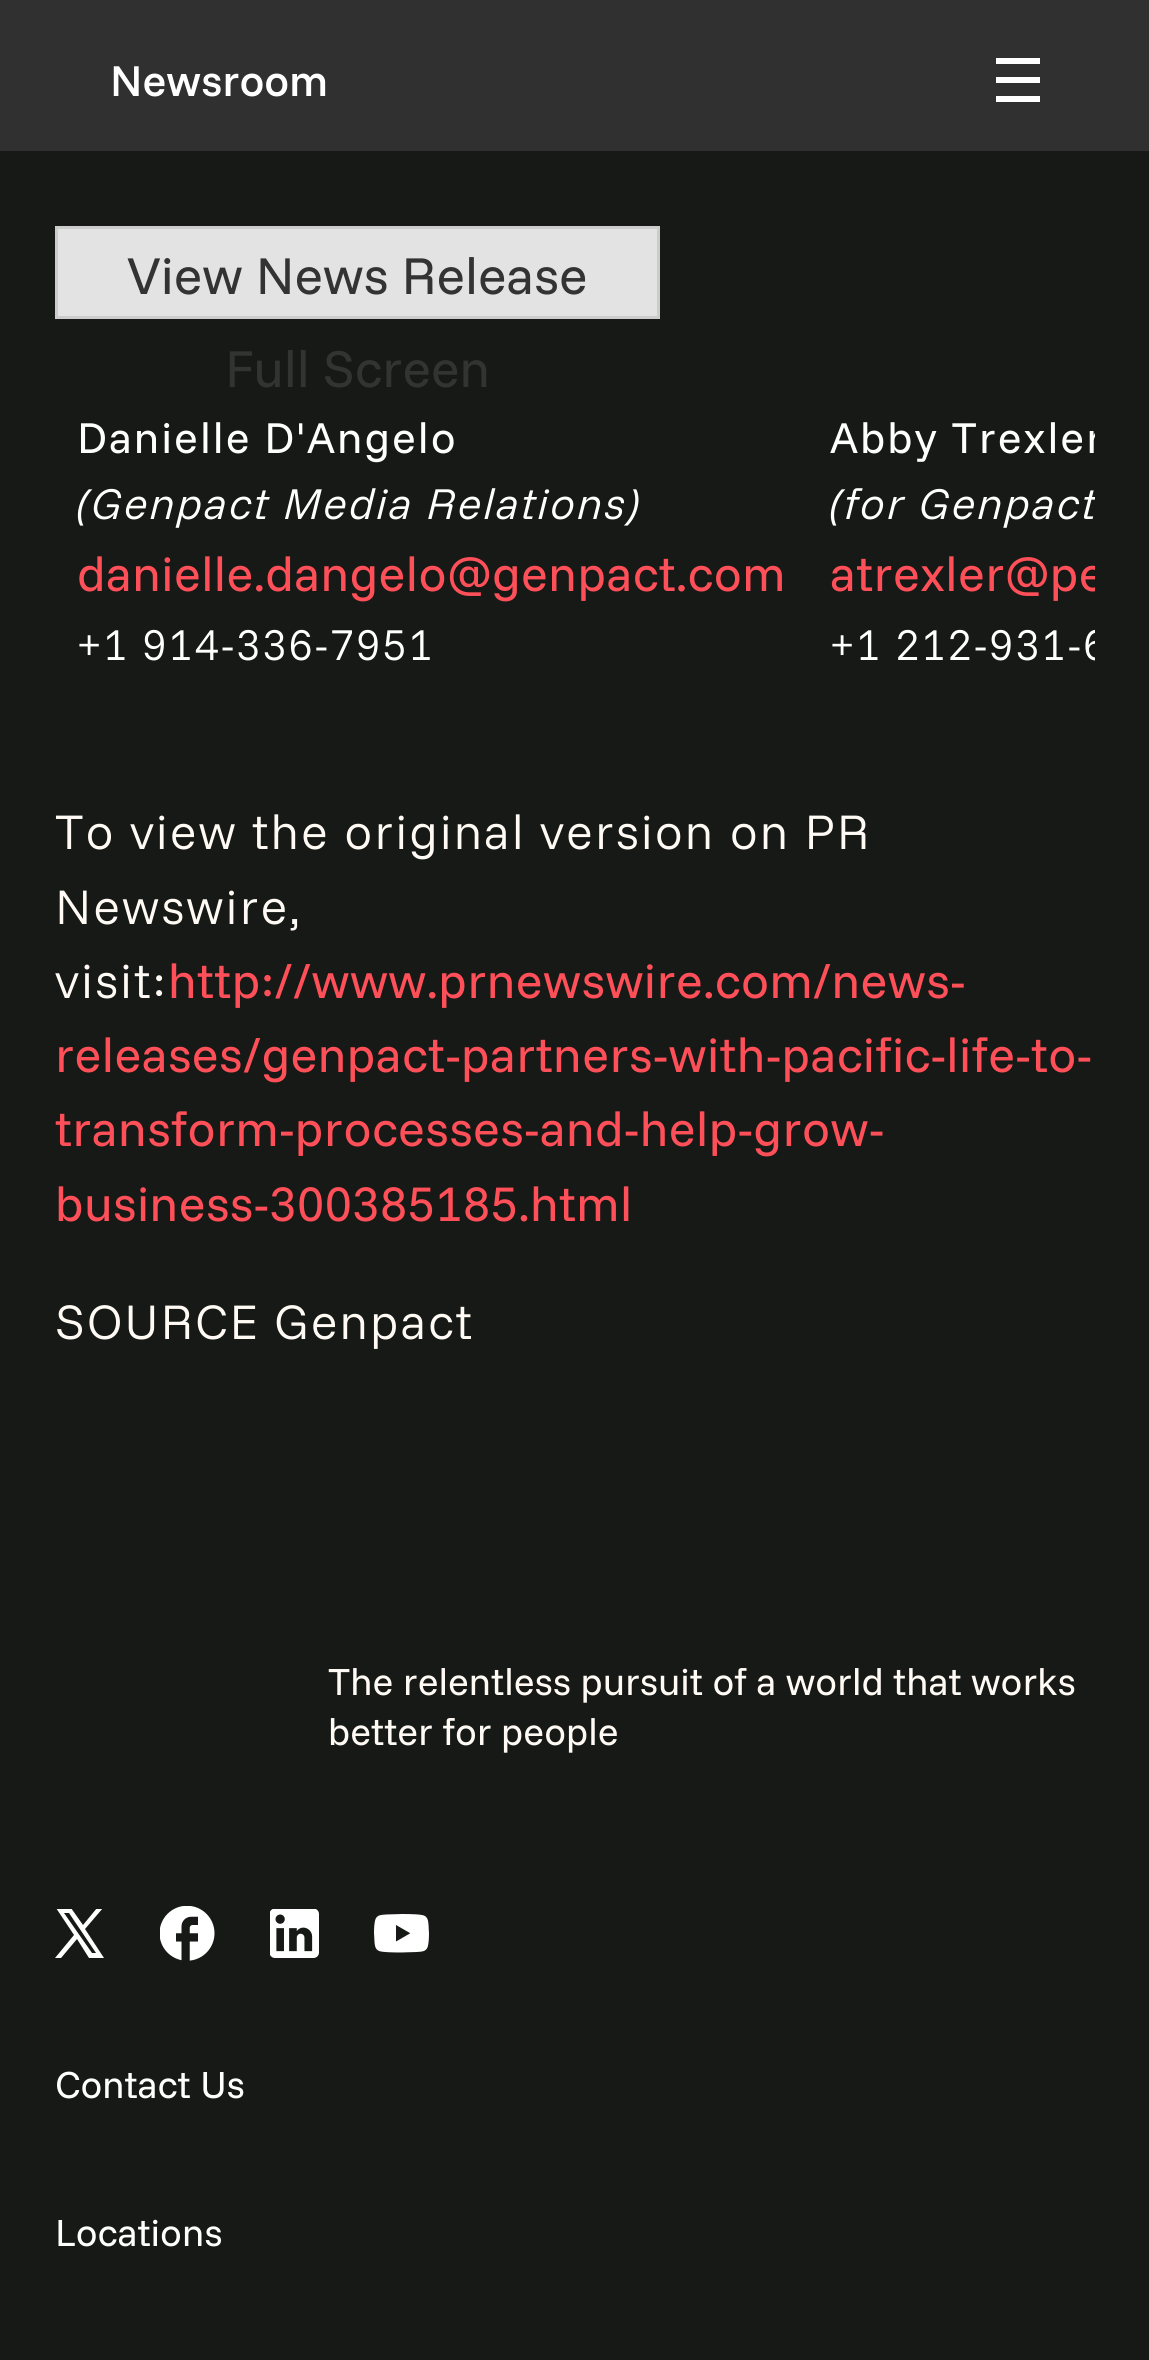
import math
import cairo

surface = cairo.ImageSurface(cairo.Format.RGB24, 1149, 2360)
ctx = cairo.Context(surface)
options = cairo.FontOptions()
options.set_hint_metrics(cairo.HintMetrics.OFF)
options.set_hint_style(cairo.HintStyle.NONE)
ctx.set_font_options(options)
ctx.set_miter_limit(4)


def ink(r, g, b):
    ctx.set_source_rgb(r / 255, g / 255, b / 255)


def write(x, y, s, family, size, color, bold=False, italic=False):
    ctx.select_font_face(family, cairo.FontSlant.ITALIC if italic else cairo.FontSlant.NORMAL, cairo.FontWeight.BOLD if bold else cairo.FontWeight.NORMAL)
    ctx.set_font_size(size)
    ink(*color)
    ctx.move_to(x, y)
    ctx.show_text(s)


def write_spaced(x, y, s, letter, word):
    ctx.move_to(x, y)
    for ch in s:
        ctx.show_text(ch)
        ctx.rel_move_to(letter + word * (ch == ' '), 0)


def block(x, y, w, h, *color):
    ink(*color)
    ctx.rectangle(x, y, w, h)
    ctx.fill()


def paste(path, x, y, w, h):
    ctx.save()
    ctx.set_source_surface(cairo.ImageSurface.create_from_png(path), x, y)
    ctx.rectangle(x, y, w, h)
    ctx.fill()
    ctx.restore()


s1 = dict(family="Funnel Sans Medium", size=44, color=(255, 255, 255))
s2 = dict(family="Funnel Sans", size=52.75, color=(51, 51, 51))
s3 = dict(family="Funnel Sans", size=38.5, color=(255, 250, 244))
s4 = dict(family="Funnel Sans", size=38.5, color=(255, 255, 255))

ink(22, 25, 22)
ctx.paint()
block(0, 0, 1149, 151, 48, 48, 48)
write(110, 96, "Newsroom", **s1)
block(996, 77, 44, 6, 255, 255, 255)
block(996, 58, 44, 6, 255, 255, 255)
block(996, 96, 44, 6, 255, 255, 255)
ink(227, 227, 227)
ctx.rectangle(56.5, 227.5, 602, 90)
ctx.fill_preserve()
ink(204, 204, 204)
ctx.set_line_width(3)
ctx.stroke()
write(127, 294, "View News Release", **s2)
write(225, 387, "Full Screen", **s2)
ctx.set_font_size(44)
ink(255, 255, 255)
write_spaced(77, 453, "Danielle D'Angelo", 2, 0)
ctx.select_font_face("Funnel Sans Light", cairo.FontSlant.ITALIC)
write_spaced(77, 519, "(Genpact Media Relations)", 2, 0)
ctx.select_font_face("Funnel Sans")
ctx.set_font_size(49.5)
ink(255, 79, 89)
write_spaced(77, 591, "danielle.dangelo@genpact.com", 0.45, 0)
ctx.select_font_face("Funnel Sans Light")
ctx.set_font_size(44)
ink(255, 255, 255)
write_spaced(77, 660, "+1 914-336-7951", 2, 0)
ctx.save()
ctx.rectangle(55, 212, 1040, 465)
ctx.clip()
ctx.select_font_face("Funnel Sans")
write_spaced(830, 453, "Abby Trexler", 2, 0)
ctx.select_font_face("Funnel Sans Light", cairo.FontSlant.ITALIC)
write_spaced(830, 519, "(for Genpact", 2, 0)
ctx.select_font_face("Funnel Sans")
ctx.set_font_size(49.5)
ink(255, 79, 89)
write_spaced(830, 591, "atrexler@pe", 0.45, 0)
ctx.select_font_face("Funnel Sans Light")
ctx.set_font_size(44)
ink(255, 255, 255)
write_spaced(830, 660, "+1 212-931-6", 2, 0)
ctx.restore()
ctx.set_font_size(49.5)
ink(255, 250, 244)
write_spaced(55, 849, "To view the original version on PR", 2, 0)
write_spaced(55, 924, "Newswire,", 2, 0)
write_spaced(55, 998, "visit:", 2, 0)
ctx.select_font_face("Funnel Sans")
ink(255, 79, 89)
write_spaced(168, 998, "http://www.prnewswire.com/news-", 0.45, 0)
write_spaced(55, 1072, "releases/genpact-partners-with-pacific-life-to-", 0.45, 0)
write_spaced(55, 1146, "transform-processes-and-help-grow-", 0.45, 0)
write_spaced(55, 1221, "business-300385185.html", 0.45, 0)
ctx.select_font_face("Funnel Sans Light")
ink(255, 250, 244)
write_spaced(55, 1339, "SOURCE Genpact", 2, 0)
write(328, 1695, "The relentless pursuit of a world that works", **s3)
write(328, 1745, "better for people", **s3)
ctx.save()
ctx.rectangle(55, 1909, 50, 49)
ctx.clip()
ink(255, 255, 255)
ctx.set_fill_rule(cairo.FillRule.EVEN_ODD)
ctx.new_path()
ctx.move_to(104, 1958)
ctx.line_to(85, 1929)
ctx.line_to(103, 1908)
ctx.line_to(97, 1908)
ctx.line_to(83, 1925)
ctx.line_to(71, 1908)
ctx.line_to(56, 1908)
ctx.line_to(74, 1935)
ctx.line_to(55, 1958)
ctx.line_to(61, 1958)
ctx.line_to(77, 1939)
ctx.line_to(89, 1958)
ctx.close_path()
ctx.move_to(69, 1913)
ctx.line_to(96, 1953)
ctx.line_to(92, 1953)
ctx.line_to(64, 1913)
ctx.close_path()
ctx.fill()
ctx.restore()
paste("pic1.png", 160, 1906, 55, 55)
paste("pic2.png", 270, 1909, 49, 49)
paste("pic3.png", 374, 1914, 55, 39)
write(55, 2098, "Contact Us", **s4)
write(55, 2246, "Locations", **s4)
surface.write_to_png("screenshot.png")
